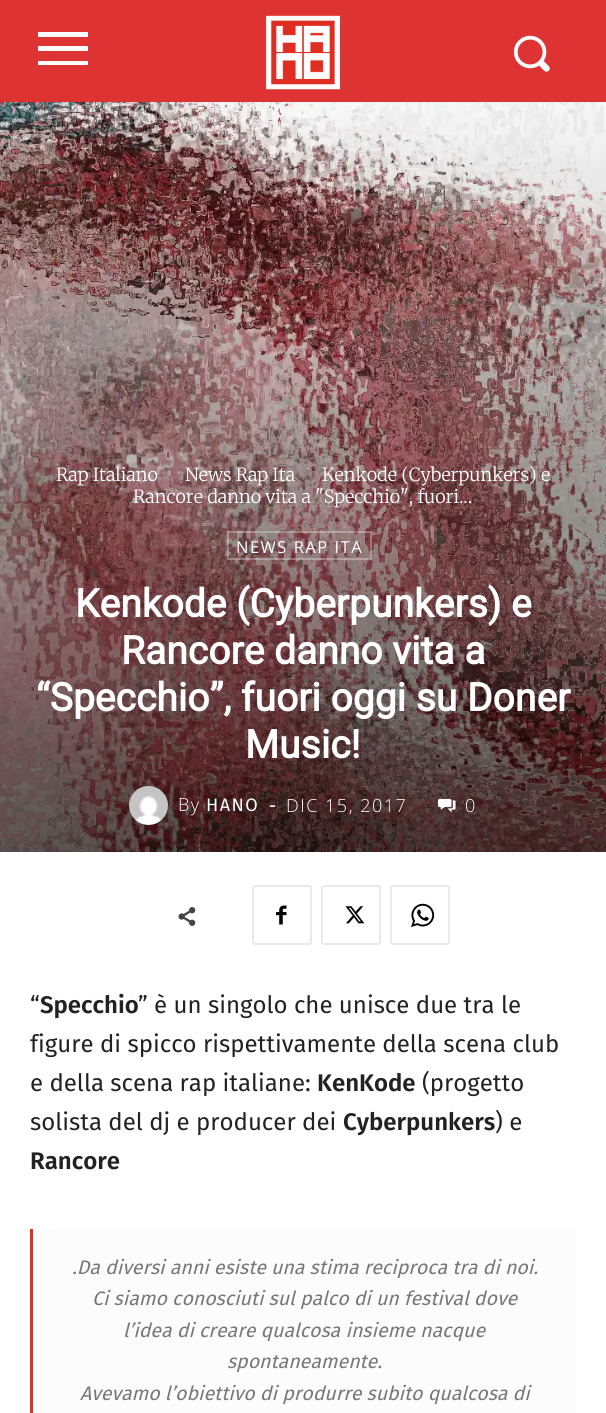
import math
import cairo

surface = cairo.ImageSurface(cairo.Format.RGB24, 606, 1413)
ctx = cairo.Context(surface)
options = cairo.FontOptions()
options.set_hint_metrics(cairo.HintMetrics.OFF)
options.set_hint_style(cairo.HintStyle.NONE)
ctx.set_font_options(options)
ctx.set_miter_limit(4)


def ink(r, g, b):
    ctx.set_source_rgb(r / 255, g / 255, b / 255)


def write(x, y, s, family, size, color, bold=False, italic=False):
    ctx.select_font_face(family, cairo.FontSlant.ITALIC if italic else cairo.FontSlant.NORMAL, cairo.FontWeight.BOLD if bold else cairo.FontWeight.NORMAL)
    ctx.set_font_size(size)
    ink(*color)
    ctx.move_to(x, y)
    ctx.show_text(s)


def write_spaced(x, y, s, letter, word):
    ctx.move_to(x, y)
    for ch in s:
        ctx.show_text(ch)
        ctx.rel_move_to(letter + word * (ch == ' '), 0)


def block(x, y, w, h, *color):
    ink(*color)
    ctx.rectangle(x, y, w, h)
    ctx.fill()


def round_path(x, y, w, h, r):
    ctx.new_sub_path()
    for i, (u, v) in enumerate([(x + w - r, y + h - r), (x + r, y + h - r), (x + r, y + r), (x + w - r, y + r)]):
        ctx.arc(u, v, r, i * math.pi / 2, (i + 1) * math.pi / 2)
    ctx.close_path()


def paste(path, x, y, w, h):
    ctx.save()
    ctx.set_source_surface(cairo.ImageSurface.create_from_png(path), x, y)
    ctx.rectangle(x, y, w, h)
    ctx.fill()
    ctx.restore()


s1 = dict(family="Merriweather Light", size=18, color=(255, 255, 255))
s2 = dict(family="Roboto", size=39, color=(255, 255, 255), bold=True)
s3 = dict(family="Open Sans", size=22, color=(255, 255, 255))
s4 = dict(family="Fira Sans", size=24, color=(34, 34, 34))
s5 = dict(family="Fira Sans SemiBold", size=24, color=(34, 34, 34))
s6 = dict(family="Fira Sans", size=19.5, color=(119, 119, 119), italic=True)

ink(255, 255, 255)
ctx.paint()
block(0, 0, 606, 102, 221, 51, 51)
ink(255, 255, 255)
ctx.new_path()
ctx.move_to(88, 37)
ctx.line_to(38, 37)
ctx.line_to(38, 32)
ctx.line_to(88, 32)
ctx.close_path()
ctx.move_to(88, 51)
ctx.line_to(38, 51)
ctx.line_to(38, 46)
ctx.line_to(88, 46)
ctx.close_path()
ctx.move_to(88, 65)
ctx.line_to(38, 65)
ctx.line_to(38, 61)
ctx.line_to(88, 61)
ctx.close_path()
ctx.fill()
paste("pic1.png", 265, 15, 76, 75)
paste("pic2.png", 513, 35, 37, 37)
paste("pic3.png", 0, 102, 606, 750)
write(56, 481, "Rap Italiano", **s1)
write(185, 481, "News Rap Ita", **s1)
write(322, 481, "Kenkode (Cyberpunkers) e", **s1)
write(133, 503, "Rancore danno vita a \"Specchio\", fuori...", **s1)
ctx.rectangle(228, 532, 143, 27)
ctx.set_source_rgba(1, 1, 1, 0.3)
ctx.stroke()
ctx.select_font_face("Open Sans")
ctx.set_font_size(16.5)
ink(255, 255, 255)
write_spaced(236, 553, "NEWS RAP ITA", 1.5, 0)
write(75, 617, "Kenkode (Cyberpunkers) e", **s2)
write(121, 664, "Rancore danno vita a", **s2)
write(36, 711, "“Specchio”, fuori oggi su Doner", **s2)
write(245, 758, "Music!", **s2)
paste("pic4.png", 129, 786, 39, 39)
ctx.select_font_face("Open Sans Light")
ctx.set_font_size(18)
write_spaced(178, 811, "By", 1.5, 0)
ctx.select_font_face("Fira Sans")
write_spaced(206, 811, "HANO", 1.5, 0)
write(269, 812, "-", **s3)
ctx.select_font_face("Open Sans Light")
ctx.set_font_size(18)
write_spaced(286, 812, "DIC 15, 2017", 1.5, 0)
paste("pic5.png", 438, 798, 18, 15)
write_spaced(465, 812, "0", 1.5, 0)
paste("pic6.png", 178, 907, 18, 19)
round_path(253, 886, 58, 58, 2)
ink(233, 233, 233)
ctx.stroke()
paste("pic7.png", 276, 905, 11, 20)
round_path(322, 886, 58, 58, 2)
ctx.stroke()
paste("pic8.png", 345, 906, 20, 18)
round_path(391, 886, 58, 58, 2)
ctx.stroke()
paste("pic9.png", 411, 903, 24, 24)
write(30, 1013, "“", **s4)
write(40, 1013, "Specchio", **s5)
write(138, 1013, "” è un singolo che unisce due tra le", **s4)
write(30, 1052, "figure di spicco rispettivamente della scena club", **s4)
write(30, 1091, "e della scena rap italiane:", **s4)
write(317, 1091, "KenKode", **s5)
write(422, 1091, "(progetto", **s4)
write(30, 1130, "solista del dj e producer dei", **s4)
write(343, 1130, "Cyberpunkers", **s5)
write(495, 1130, ") e", **s4)
write(30, 1169, "Rancore", **s5)
block(33, 1229, 543, 184, 252, 252, 252)
block(30, 1229, 3, 184, 222, 49, 39)
write(72, 1274, ".Da diversi anni esiste una stima reciproca tra di noi.", **s6)
write(92, 1305, "Ci siamo conosciuti sul palco di un festival dove", **s6)
write(123, 1337, "l’idea di creare qualcosa insieme nacque", **s6)
write(227, 1368, "spontaneamente.", **s6)
write(80, 1400, "Avevamo l’obiettivo di produrre subito qualcosa di", **s6)
surface.write_to_png("screenshot.png")
